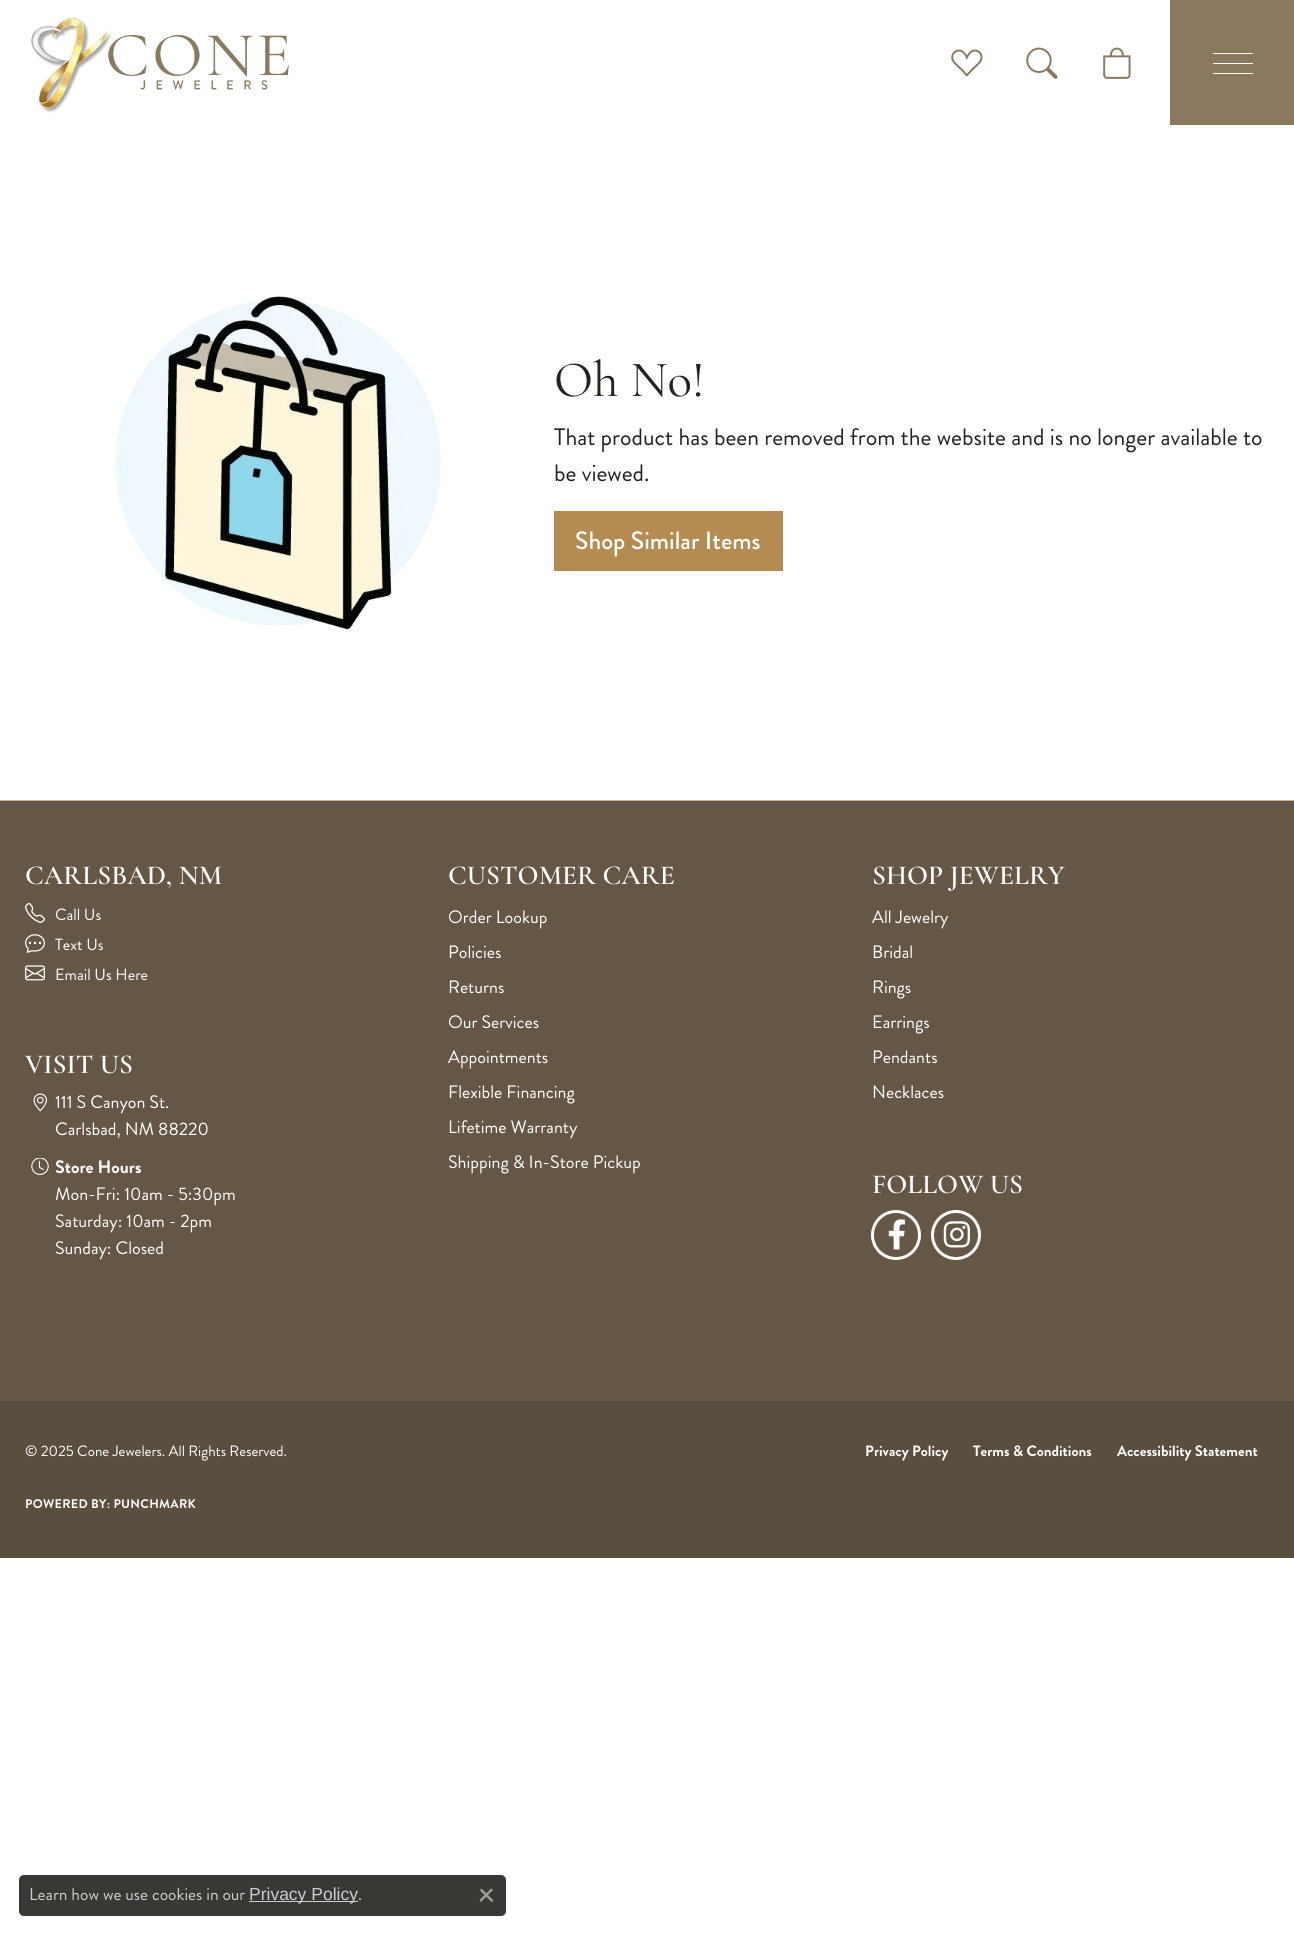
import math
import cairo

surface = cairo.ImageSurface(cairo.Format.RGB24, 1294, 1935)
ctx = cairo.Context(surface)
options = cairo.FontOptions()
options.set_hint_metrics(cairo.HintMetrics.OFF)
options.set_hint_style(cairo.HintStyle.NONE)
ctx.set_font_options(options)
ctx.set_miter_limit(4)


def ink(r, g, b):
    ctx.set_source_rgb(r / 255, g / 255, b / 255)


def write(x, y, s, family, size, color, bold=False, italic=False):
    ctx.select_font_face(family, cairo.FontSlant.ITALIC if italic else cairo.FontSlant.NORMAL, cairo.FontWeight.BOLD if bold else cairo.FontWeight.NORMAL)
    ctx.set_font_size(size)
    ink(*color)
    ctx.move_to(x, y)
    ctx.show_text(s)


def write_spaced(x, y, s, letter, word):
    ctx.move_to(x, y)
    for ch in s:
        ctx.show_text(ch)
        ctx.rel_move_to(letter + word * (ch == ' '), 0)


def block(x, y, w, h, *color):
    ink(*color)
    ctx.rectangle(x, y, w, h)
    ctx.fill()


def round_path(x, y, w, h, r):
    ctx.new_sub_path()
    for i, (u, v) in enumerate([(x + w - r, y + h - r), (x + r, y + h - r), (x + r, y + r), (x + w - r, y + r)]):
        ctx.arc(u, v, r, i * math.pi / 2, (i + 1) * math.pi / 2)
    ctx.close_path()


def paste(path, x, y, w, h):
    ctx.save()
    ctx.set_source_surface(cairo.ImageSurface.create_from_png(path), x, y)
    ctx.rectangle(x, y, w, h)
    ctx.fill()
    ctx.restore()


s1 = dict(family="Cormorant Garamond", size=51, color=(36, 34, 30))
s2 = dict(family="Brandon Grotesque", size=23.8, color=(36, 34, 30))
s3 = dict(family="Brandon Grotesque Medium", size=25, color=(255, 255, 255))
s4 = dict(family="Cormorant Garamond SemiBold", size=27.5, color=(255, 255, 255))
s5 = dict(family="Brandon Grotesque", size=16.25, color=(255, 255, 255))
s6 = dict(family="Brandon Grotesque", size=18, color=(255, 255, 255))
s7 = dict(family="Brandon Grotesque", size=18, color=(255, 255, 255), bold=True)
s8 = dict(family="Brandon Grotesque", size=15, color=(255, 255, 255))
s9 = dict(family="Brandon Grotesque", size=15, color=(255, 255, 255), bold=True)
s10 = dict(family="Brandon Grotesque", size=17.5, color=(204, 204, 204))
s11 = dict(family="Liberation Sans", size=17.5, color=(204, 204, 204))

ink(255, 255, 255)
ctx.paint()
paste("pic1.png", 31, 17, 258, 96)
paste("pic2.png", 951, 49, 32, 28)
paste("pic3.png", 1026, 47, 32, 32)
paste("pic4.png", 1103, 47, 28, 32)
block(1170, 0, 124, 125, 139, 121, 95)
block(1213, 53, 40, 1, 255, 255, 255)
block(1213, 63, 40, 1, 255, 255, 255)
block(1213, 73, 40, 1, 255, 255, 255)
paste("pic5.png", 115, 296, 326, 333)
write(554, 396, "Oh No!", **s1)
write(554, 445, "That product has been removed from the website and is no longer available to", **s2)
write(554, 481, "be viewed.", **s2)
block(554, 511, 229, 60, 180, 140, 82)
write(575, 549, "Shop Similar Items", **s3)
block(0, 801, 1294, 600, 100, 87, 70)
block(0, 800, 1294, 1, 203, 175, 135)
write(25, 884, "CARLSBAD, NM", **s4)
paste("pic6.png", 25, 902, 20, 21)
write(55, 920, "Call Us", **s5)
paste("pic7.png", 25, 934, 20, 19)
write(55, 950, "Text Us", **s5)
paste("pic8.png", 25, 965, 20, 16)
write(55, 980, "Email Us Here", **s5)
write(25, 1073, "VISIT US", **s4)
paste("pic9.png", 33, 1093, 14, 19)
write(55, 1108, "111 S Canyon St.", **s6)
write(55, 1135, "Carlsbad, NM 88220", **s6)
paste("pic10.png", 31, 1158, 18, 17)
write(55, 1173, "Store Hours", **s7)
write(55, 1200, "Mon-Fri: 10am - 5:30pm", **s6)
write(55, 1227, "Saturday: 10am - 2pm", **s6)
write(55, 1254, "Sunday: Closed", **s6)
write(448, 884, "CUSTOMER CARE", **s4)
write(448, 923, "Order Lookup", **s6)
write(448, 958, "Policies", **s6)
write(448, 993, "Returns", **s6)
write(448, 1028, "Our Services", **s6)
write(448, 1063, "Appointments", **s6)
write(448, 1098, "Flexible Financing", **s6)
write(448, 1133, "Lifetime Warranty", **s6)
write(448, 1168, "Shipping & In-Store Pickup", **s6)
write(872, 884, "SHOP JEWELRY", **s4)
write(872, 923, "All Jewelry", **s6)
write(872, 958, "Bridal", **s6)
write(872, 993, "Rings", **s6)
write(872, 1028, "Earrings", **s6)
write(872, 1063, "Pendants", **s6)
write(872, 1098, "Necklaces", **s6)
write(872, 1193, "FOLLOW US", **s4)
ctx.new_path()
ctx.arc(896, 1235, 23.5, 0, 2 * math.pi)
ctx.set_line_width(3)
ctx.stroke()
paste("pic11.png", 888, 1219, 17, 31)
ctx.arc(956, 1235, 23.5, 0, 2 * math.pi)
ctx.stroke()
paste("pic12.png", 943, 1221, 27, 27)
block(0, 1401, 1294, 157, 90, 78, 63)
write(25, 1456, "© 2025 Cone Jewelers. All Rights Reserved.", **s8)
write(865, 1456, "Privacy Policy", **s9)
write(973, 1456, "Terms & Conditions", **s9)
write(1117, 1456, "Accessibility Statement", **s9)
ctx.set_font_size(12.5)
write_spaced(25, 1508, "POWERED BY: PUNCHMARK", 0.3, 0)
ink(58, 56, 53)
round_path(19, 1875, 487, 41, 5)
ctx.fill()
write(29, 1900, "Learn how we use cookies in our", **s10)
block(249, 1901, 109, 1, 204, 204, 204)
write(249, 1900, "Privacy Policy", **s11)
write(358, 1900, ".", **s10)
paste("pic13.png", 479, 1888, 15, 14)
surface.write_to_png("screenshot.png")
